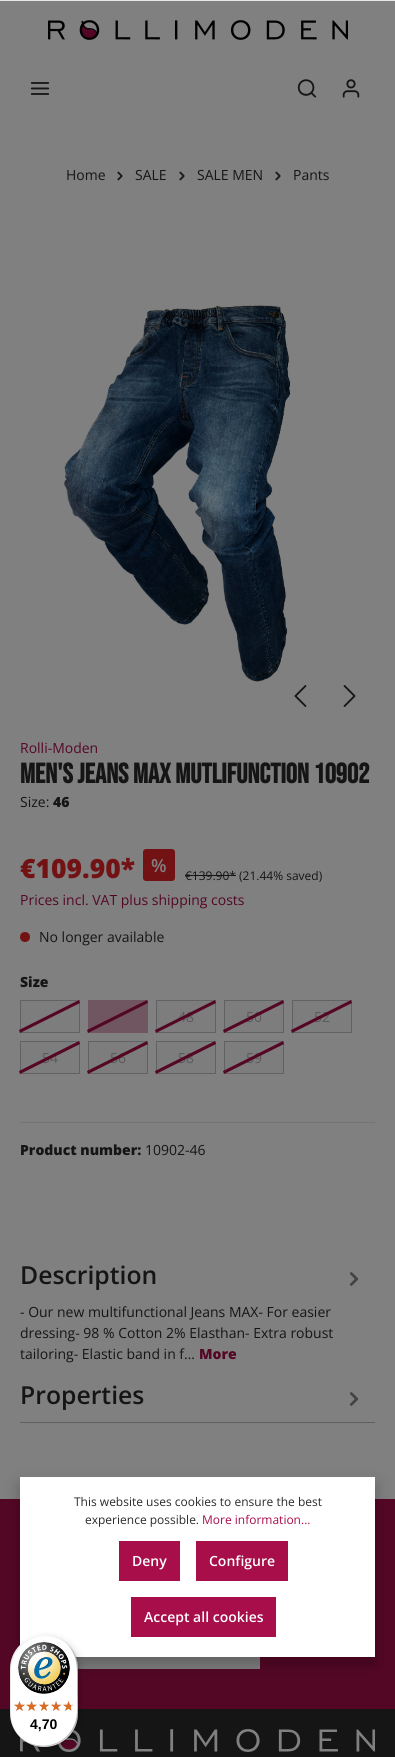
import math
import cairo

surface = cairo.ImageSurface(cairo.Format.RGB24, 395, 1757)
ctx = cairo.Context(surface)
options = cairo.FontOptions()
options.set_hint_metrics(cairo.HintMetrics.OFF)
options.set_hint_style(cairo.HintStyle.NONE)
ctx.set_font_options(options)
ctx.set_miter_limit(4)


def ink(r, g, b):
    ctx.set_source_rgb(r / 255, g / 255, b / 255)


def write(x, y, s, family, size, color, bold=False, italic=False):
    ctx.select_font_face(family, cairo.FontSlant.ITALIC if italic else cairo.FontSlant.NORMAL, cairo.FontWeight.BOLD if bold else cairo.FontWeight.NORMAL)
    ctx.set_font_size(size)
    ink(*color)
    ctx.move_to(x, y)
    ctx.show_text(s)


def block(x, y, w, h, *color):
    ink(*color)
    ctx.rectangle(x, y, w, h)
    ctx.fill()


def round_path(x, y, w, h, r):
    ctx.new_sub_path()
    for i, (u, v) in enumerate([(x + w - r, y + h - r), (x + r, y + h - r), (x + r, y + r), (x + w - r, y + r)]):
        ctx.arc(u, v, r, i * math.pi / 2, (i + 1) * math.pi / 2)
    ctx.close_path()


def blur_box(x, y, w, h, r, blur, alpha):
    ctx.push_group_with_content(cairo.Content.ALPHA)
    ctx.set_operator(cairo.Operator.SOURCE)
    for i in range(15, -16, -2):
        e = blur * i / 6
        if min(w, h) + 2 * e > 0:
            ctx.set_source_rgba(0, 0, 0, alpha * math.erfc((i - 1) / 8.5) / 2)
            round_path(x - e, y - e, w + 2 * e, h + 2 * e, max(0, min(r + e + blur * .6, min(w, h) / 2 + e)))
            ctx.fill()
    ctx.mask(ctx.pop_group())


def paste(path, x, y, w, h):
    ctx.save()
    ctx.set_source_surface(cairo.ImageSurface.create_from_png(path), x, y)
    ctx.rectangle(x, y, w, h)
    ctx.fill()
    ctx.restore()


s1 = dict(family="Open Sans", size=14, color=(21, 21, 21))
s2 = dict(family="Open Sans", size=14, color=(84, 7, 37))
s3 = dict(family="Bebas Neue", size=28, color=(21, 21, 21), bold=True)
s4 = dict(family="Open Sans ExtraBold", size=14, color=(21, 21, 21))
s5 = dict(family="Open Sans ExtraBold", size=26.5, color=(115, 18, 20))
s6 = dict(family="Open Sans SemiBold", size=18, color=(128, 128, 128))
s7 = dict(family="Open Sans", size=12, color=(21, 21, 21))
s8 = dict(family="Open Sans", size=14, color=(90, 90, 90))
s9 = dict(family="Open Sans SemiBold", size=24.75, color=(21, 21, 21))
s10 = dict(family="Open Sans ExtraBold", size=14, color=(84, 7, 37))
s11 = dict(family="Open Sans", size=12, color=(42, 42, 42))
s12 = dict(family="Open Sans", size=12, color=(167, 14, 74))
s13 = dict(family="Open Sans SemiBold", size=14, color=(255, 255, 255))
s14 = dict(family="Liberation Sans", size=14, color=(0, 0, 0), bold=True)

ink(128, 128, 128)
ctx.paint()
paste("pic1.png", 48, 20, 300, 20)
paste("pic2.png", 30, 82, 20, 13)
paste("pic3.png", 297, 79, 20, 19)
paste("pic4.png", 342, 79, 18, 19)
write(66, 180, "Home", **s1)
paste("pic5.png", 117, 171, 6, 10)
write(135, 180, "SALE", **s1)
paste("pic5.png", 179, 171, 6, 10)
write(197, 180, "SALE MEN", **s1)
paste("pic5.png", 275, 171, 6, 10)
write(293, 180, "Pants", **s1)
paste("pic6.png", 64, 305, 227, 377)
paste("pic7.png", 294, 685, 13, 22)
paste("pic8.png", 343, 685, 13, 22)
write(20, 753, "Rolli-Moden", **s2)
write(20, 783, "Men's Jeans MAX Mutlifunction 10902", **s3)
write(20, 807, "Size:", **s1)
write(53, 807, "46", **s4)
write(20, 878, "€109.90*", **s5)
round_path(143, 849, 32, 32, 3)
ctx.fill()
write(151, 872, "%", **s6)
write(185, 880, "€139.90* (21.44% saved)", **s7)
block(185, 875, 51, 1, 21, 21, 21)
write(20, 905, "Prices incl. VAT plus shipping costs", **s2)
ink(115, 18, 20)
ctx.new_path()
ctx.arc(25, 937, 5, 0, 2 * math.pi)
ctx.fill()
write(39, 942, "No longer available", **s1)
write(20, 987, "Size", **s4)
ink(125, 125, 125)
ctx.rectangle(20.5, 1000.5, 59, 32)
ctx.fill_preserve()
ink(96, 98, 99)
ctx.set_line_width(1)
ctx.stroke()
ink(84, 7, 37)
ctx.new_path()
ctx.move_to(19, 1030)
ctx.line_to(79, 1000)
ctx.line_to(80, 1003)
ctx.line_to(20, 1033)
ctx.close_path()
ctx.fill()
block(88, 1000, 60, 33, 112, 86, 96)
ink(84, 7, 37)
ctx.new_path()
ctx.move_to(87, 1030)
ctx.line_to(147, 1000)
ctx.line_to(148, 1003)
ctx.line_to(88, 1033)
ctx.close_path()
ctx.fill()
ink(125, 125, 125)
ctx.rectangle(156.5, 1000.5, 59, 32)
ctx.fill_preserve()
ink(96, 98, 99)
ctx.stroke()
write(178, 1022, "48", **s8)
ink(84, 7, 37)
ctx.new_path()
ctx.move_to(155, 1030)
ctx.line_to(215, 1000)
ctx.line_to(216, 1003)
ctx.line_to(156, 1033)
ctx.close_path()
ctx.fill()
ink(125, 125, 125)
ctx.rectangle(224.5, 1000.5, 59, 32)
ctx.fill_preserve()
ink(96, 98, 99)
ctx.stroke()
write(246, 1022, "50", **s8)
ink(84, 7, 37)
ctx.new_path()
ctx.move_to(223, 1030)
ctx.line_to(283, 1000)
ctx.line_to(284, 1003)
ctx.line_to(224, 1033)
ctx.close_path()
ctx.fill()
ink(125, 125, 125)
ctx.rectangle(292.5, 1000.5, 59, 32)
ctx.fill_preserve()
ink(96, 98, 99)
ctx.stroke()
write(314, 1022, "52", **s8)
ink(84, 7, 37)
ctx.new_path()
ctx.move_to(291, 1030)
ctx.line_to(351, 1000)
ctx.line_to(352, 1003)
ctx.line_to(292, 1033)
ctx.close_path()
ctx.fill()
ink(125, 125, 125)
ctx.rectangle(20.5, 1041.5, 59, 32)
ctx.fill_preserve()
ink(96, 98, 99)
ctx.stroke()
write(42, 1063, "54", **s8)
ink(84, 7, 37)
ctx.new_path()
ctx.move_to(19, 1071)
ctx.line_to(79, 1041)
ctx.line_to(80, 1044)
ctx.line_to(20, 1074)
ctx.close_path()
ctx.fill()
ink(125, 125, 125)
ctx.rectangle(88.5, 1041.5, 59, 32)
ctx.fill_preserve()
ink(96, 98, 99)
ctx.stroke()
write(110, 1063, "56", **s8)
ink(84, 7, 37)
ctx.new_path()
ctx.move_to(87, 1071)
ctx.line_to(147, 1041)
ctx.line_to(148, 1044)
ctx.line_to(88, 1074)
ctx.close_path()
ctx.fill()
ink(125, 125, 125)
ctx.rectangle(156.5, 1041.5, 59, 32)
ctx.fill_preserve()
ink(96, 98, 99)
ctx.stroke()
write(178, 1063, "58", **s8)
ink(84, 7, 37)
ctx.new_path()
ctx.move_to(155, 1071)
ctx.line_to(215, 1041)
ctx.line_to(216, 1044)
ctx.line_to(156, 1074)
ctx.close_path()
ctx.fill()
ink(125, 125, 125)
ctx.rectangle(224.5, 1041.5, 59, 32)
ctx.fill_preserve()
ink(96, 98, 99)
ctx.stroke()
write(246, 1063, "59", **s8)
ink(84, 7, 37)
ctx.new_path()
ctx.move_to(223, 1071)
ctx.line_to(283, 1041)
ctx.line_to(284, 1044)
ctx.line_to(224, 1074)
ctx.close_path()
ctx.fill()
block(20, 1122, 355, 1, 116, 116, 116)
write(20, 1155, "Product number:", **s4)
write(145, 1155, "10902-46", **s1)
block(20, 1422, 355, 1, 94, 97, 100)
write(20, 1284, "Description", **s9)
paste("pic9.png", 349, 1272, 10, 14)
write(20, 1317, "- Our new multifunctional Jeans MAX- For easier", **s1)
write(20, 1338, "dressing- 98 % Cotton 2% Elasthan- Extra robust", **s1)
write(20, 1359, "tailoring- Elastic band in f…", **s1)
write(199, 1359, "More", **s10)
write(20, 1404, "Properties", **s9)
paste("pic9.png", 349, 1392, 10, 14)
block(0, 1709, 395, 48, 21, 21, 21)
block(0, 1499, 395, 210, 84, 7, 37)
block(75, 1657, 185, 12, 128, 128, 128)
paste("pic10.png", 20, 1729, 355, 23)
block(0, 0, 395, 1, 232, 231, 232)
ink(0, 0, 0)
blur_box(20, 1485, 355, 180, 0, 8, 0.25)
block(20, 1477, 355, 180, 255, 255, 255)
write(74, 1506, "This website uses cookies to ensure the best", **s11)
write(85, 1524, "experience possible.", **s11)
write(202, 1524, "More information...", **s12)
block(119, 1541, 61, 40, 167, 14, 74)
write(132, 1566, "Deny", **s13)
block(196, 1541, 92, 40, 167, 14, 74)
write(209, 1566, "Configure", **s13)
block(131, 1597, 145, 40, 167, 14, 74)
write(144, 1622, "Accept all cookies", **s13)
ink(0, 0, 0)
blur_box(13, 1638, 68, 112, 34, 4, 0.15)
blur_box(11, 1636, 68, 112, 34, 1, 0.15)
ink(255, 255, 255)
round_path(10, 1635, 68, 112, 34)
ctx.fill()
ctx.set_source_rgba(0, 0, 0, 0.1)
ctx.new_path()
ctx.move_to(45, 1636)
ctx.curve_to(53, 1636, 61, 1639, 67, 1644)
ctx.curve_to(50, 1629, 22, 1635, 13, 1656)
ctx.curve_to(8, 1666, 10, 1680, 10, 1691)
ctx.curve_to(10, 1706, 7, 1723, 19, 1736)
ctx.curve_to(14, 1730, 11, 1722, 11, 1714)
ctx.line_to(11, 1670)
ctx.curve_to(11, 1651, 26, 1636, 45, 1636)
ctx.close_path()
ctx.fill()
ctx.set_source_rgba(0, 0, 0, 0.2)
ctx.new_path()
ctx.move_to(21, 1738)
ctx.curve_to(38, 1753, 66, 1747, 75, 1726)
ctx.curve_to(80, 1716, 78, 1702, 78, 1691)
ctx.curve_to(78, 1676, 81, 1659, 69, 1646)
ctx.curve_to(79, 1659, 77, 1675, 77, 1690)
ctx.curve_to(77, 1701, 79, 1715, 74, 1725)
ctx.curve_to(66, 1746, 38, 1752, 21, 1738)
ctx.close_path()
ctx.fill()
ctx.set_source_rgba(0.196, 0.196, 0.196, 0.2)
ctx.new_path()
ctx.move_to(17, 1734)
ctx.curve_to(24, 1742, 33, 1747, 44, 1747)
ctx.curve_to(63, 1747, 78, 1732, 78, 1713)
ctx.line_to(78, 1669)
ctx.curve_to(78, 1658, 73, 1649, 65, 1642)
ctx.curve_to(72, 1649, 77, 1658, 77, 1668)
ctx.line_to(77, 1712)
ctx.curve_to(77, 1731, 62, 1746, 43, 1746)
ctx.curve_to(33, 1746, 24, 1741, 17, 1734)
ctx.close_path()
ctx.fill()
ctx.set_source_rgba(1, 1, 1, 0.3)
ctx.new_path()
ctx.move_to(10, 1712)
ctx.curve_to(10, 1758, 78, 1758, 78, 1712)
ctx.curve_to(78, 1731, 62, 1746, 44, 1746)
ctx.curve_to(25, 1746, 10, 1731, 10, 1712)
ctx.close_path()
ctx.fill()
paste("pic11.png", 18, 1642, 52, 52)
paste("pic12.png", 14, 1701, 11, 10)
paste("pic13.png", 27, 1701, 10, 10)
paste("pic14.png", 39, 1701, 10, 10)
paste("pic15.png", 51, 1701, 11, 10)
paste("pic15.png", 63, 1701, 11, 10)
paste("pic16.png", 14, 1701, 11, 10)
paste("pic17.png", 26, 1701, 11, 10)
paste("pic18.png", 39, 1701, 10, 10)
paste("pic19.png", 51, 1701, 10, 10)
paste("pic20.png", 63, 1701, 8, 10)
write(30, 1729, "4,70", **s14)
surface.write_to_png("screenshot.png")
